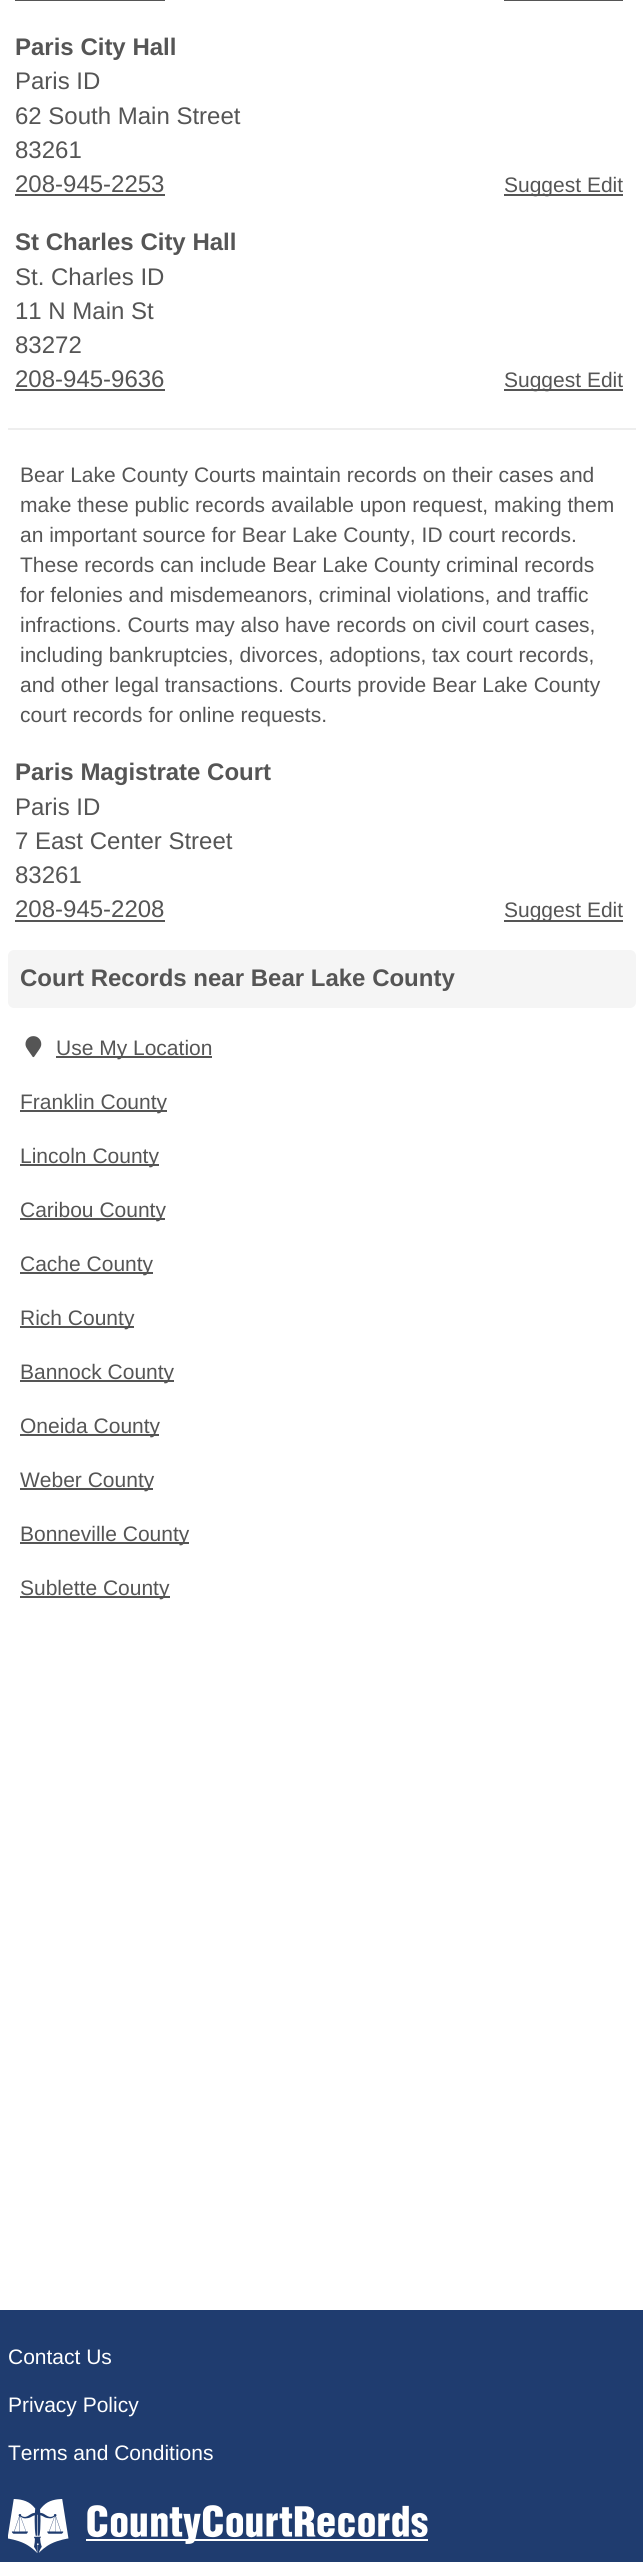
import math
import cairo

surface = cairo.ImageSurface(cairo.Format.RGB24, 643, 2562)
ctx = cairo.Context(surface)
options = cairo.FontOptions()
options.set_hint_metrics(cairo.HintMetrics.OFF)
options.set_hint_style(cairo.HintStyle.NONE)
ctx.set_font_options(options)
ctx.set_miter_limit(4)


def ink(r, g, b):
    ctx.set_source_rgb(r / 255, g / 255, b / 255)


def write(x, y, s, family, size, color, bold=False, italic=False):
    ctx.select_font_face(family, cairo.FontSlant.ITALIC if italic else cairo.FontSlant.NORMAL, cairo.FontWeight.BOLD if bold else cairo.FontWeight.NORMAL)
    ctx.set_font_size(size)
    ink(*color)
    ctx.move_to(x, y)
    ctx.show_text(s)


def block(x, y, w, h, *color):
    ink(*color)
    ctx.rectangle(x, y, w, h)
    ctx.fill()


def round_path(x, y, w, h, r):
    ctx.new_sub_path()
    for i, (u, v) in enumerate([(x + w - r, y + h - r), (x + r, y + h - r), (x + r, y + r), (x + w - r, y + r)]):
        ctx.arc(u, v, r, i * math.pi / 2, (i + 1) * math.pi / 2)
    ctx.close_path()


def paste(path, x, y, w, h):
    ctx.save()
    ctx.set_source_surface(cairo.ImageSurface.create_from_png(path), x, y)
    ctx.rectangle(x, y, w, h)
    ctx.fill()
    ctx.restore()


s1 = dict(family="Liberation Sans", size=24, color=(85, 85, 85), bold=True)
s2 = dict(family="Liberation Sans", size=24, color=(85, 85, 85))
s3 = dict(family="Liberation Sans", size=21, color=(85, 85, 85))
s4 = dict(family="Liberation Sans", size=21, color=(255, 255, 255))

ink(255, 255, 255)
ctx.paint()
block(15, 0, 150, 1, 85, 85, 85)
block(504, 0, 119, 1, 85, 85, 85)
write(15, 55, "Paris City Hall", **s1)
write(15, 89, "Paris ID", **s2)
write(15, 124, "62 South Main Street", **s2)
write(15, 158, "83261", **s2)
write(15, 192, "208-945-2253", **s2)
block(15, 194, 150, 2, 85, 85, 85)
block(504, 194, 119, 2, 85, 85, 85)
write(504, 192, "Suggest Edit", **s3)
write(15, 250, "St Charles City Hall", **s1)
write(15, 285, "St. Charles ID", **s2)
write(15, 319, "11 N Main St", **s2)
write(15, 353, "83272", **s2)
write(15, 387, "208-945-9636", **s2)
block(15, 389, 150, 2, 85, 85, 85)
block(504, 389, 119, 2, 85, 85, 85)
write(504, 387, "Suggest Edit", **s3)
block(8, 428, 628, 2, 238, 238, 238)
write(20, 482, "Bear Lake County Courts maintain records on their cases and", **s3)
write(20, 512, "make these public records available upon request, making them", **s3)
write(20, 542, "an important source for Bear Lake County, ID court records.", **s3)
write(20, 572, "These records can include Bear Lake County criminal records", **s3)
write(20, 602, "for felonies and misdemeanors, criminal violations, and traffic", **s3)
write(20, 632, "infractions. Courts may also have records on civil court cases,", **s3)
write(20, 662, "including bankruptcies, divorces, adoptions, tax court records,", **s3)
write(20, 692, "and other legal transactions. Courts provide Bear Lake County", **s3)
write(20, 722, "court records for online requests.", **s3)
write(15, 780, "Paris Magistrate Court", **s1)
write(15, 815, "Paris ID", **s2)
write(15, 849, "7 East Center Street", **s2)
write(15, 883, "83261", **s2)
write(15, 917, "208-945-2208", **s2)
block(15, 920, 150, 2, 85, 85, 85)
block(504, 920, 119, 2, 85, 85, 85)
write(504, 917, "Suggest Edit", **s3)
ink(245, 245, 245)
round_path(8, 950, 628, 58, 6)
ctx.fill()
write(20, 986, "Court Records near Bear Lake County", **s1)
paste("pic1.png", 25, 1036, 17, 22)
block(56, 1056, 156, 2, 85, 85, 85)
write(56, 1055, "Use My Location", **s3)
block(20, 1110, 147, 2, 85, 85, 85)
write(20, 1109, "Franklin County", **s3)
block(20, 1164, 139, 2, 85, 85, 85)
write(20, 1163, "Lincoln County", **s3)
block(20, 1218, 145, 2, 85, 85, 85)
write(20, 1217, "Caribou County", **s3)
block(20, 1272, 133, 2, 85, 85, 85)
write(20, 1271, "Cache County", **s3)
block(20, 1326, 114, 2, 85, 85, 85)
write(20, 1325, "Rich County", **s3)
block(20, 1380, 154, 2, 85, 85, 85)
write(20, 1379, "Bannock County", **s3)
block(20, 1434, 139, 2, 85, 85, 85)
write(20, 1433, "Oneida County", **s3)
block(20, 1488, 133, 2, 85, 85, 85)
write(20, 1487, "Weber County", **s3)
block(20, 1542, 169, 2, 85, 85, 85)
write(20, 1541, "Bonneville County", **s3)
block(20, 1596, 150, 2, 85, 85, 85)
write(20, 1595, "Sublette County", **s3)
block(0, 2310, 643, 252, 31, 60, 111)
write(8, 2364, "Contact Us", **s4)
write(8, 2412, "Privacy Policy", **s4)
write(8, 2460, "Terms and Conditions", **s4)
paste("pic2.png", 8, 2499, 420, 54)
surface.write_to_png("screenshot.png")
